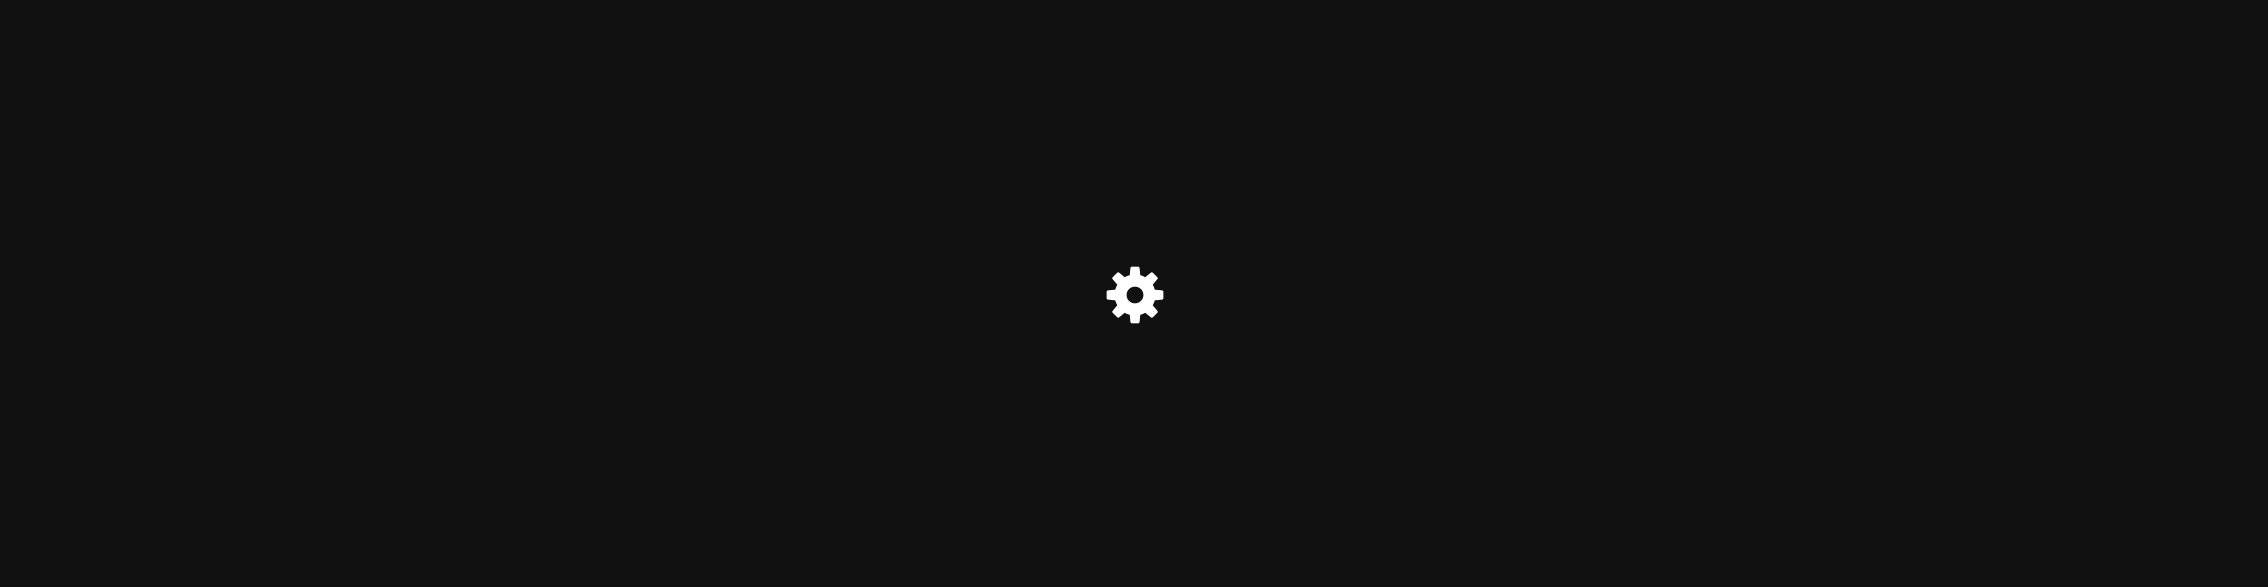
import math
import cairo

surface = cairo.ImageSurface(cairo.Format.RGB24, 2268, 587)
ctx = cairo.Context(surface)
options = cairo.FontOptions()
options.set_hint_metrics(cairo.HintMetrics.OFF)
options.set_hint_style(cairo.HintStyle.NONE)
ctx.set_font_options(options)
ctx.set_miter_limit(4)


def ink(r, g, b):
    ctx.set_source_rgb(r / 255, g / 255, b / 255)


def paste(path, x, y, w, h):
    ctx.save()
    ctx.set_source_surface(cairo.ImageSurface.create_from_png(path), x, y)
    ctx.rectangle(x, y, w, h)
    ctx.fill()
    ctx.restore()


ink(17, 17, 17)
ctx.paint()
paste("pic1.png", 1106, 266, 58, 58)
surface.write_to_png("screenshot.png")
